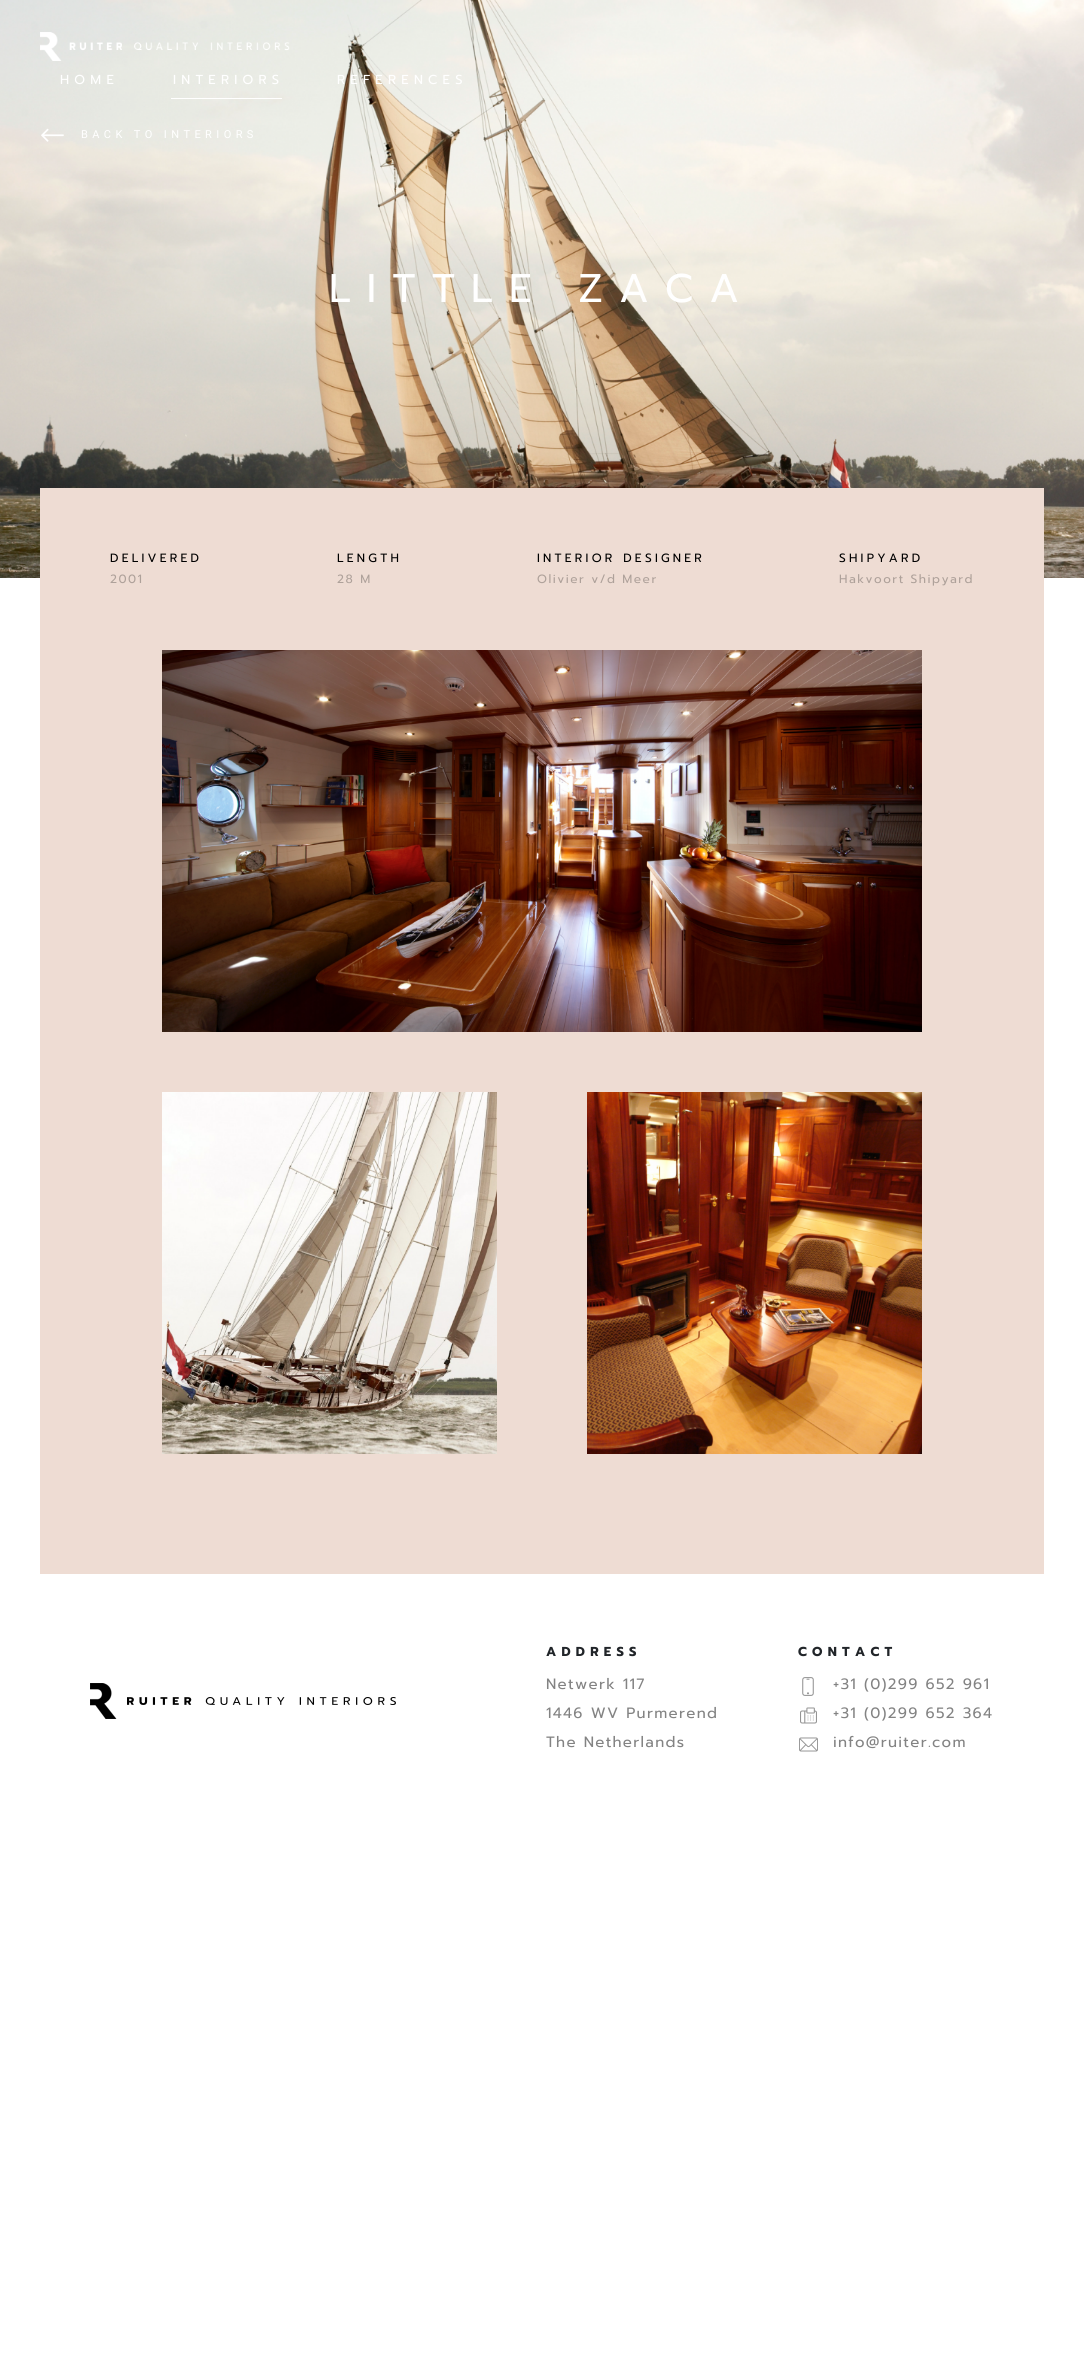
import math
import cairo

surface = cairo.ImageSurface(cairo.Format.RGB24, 1084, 2374)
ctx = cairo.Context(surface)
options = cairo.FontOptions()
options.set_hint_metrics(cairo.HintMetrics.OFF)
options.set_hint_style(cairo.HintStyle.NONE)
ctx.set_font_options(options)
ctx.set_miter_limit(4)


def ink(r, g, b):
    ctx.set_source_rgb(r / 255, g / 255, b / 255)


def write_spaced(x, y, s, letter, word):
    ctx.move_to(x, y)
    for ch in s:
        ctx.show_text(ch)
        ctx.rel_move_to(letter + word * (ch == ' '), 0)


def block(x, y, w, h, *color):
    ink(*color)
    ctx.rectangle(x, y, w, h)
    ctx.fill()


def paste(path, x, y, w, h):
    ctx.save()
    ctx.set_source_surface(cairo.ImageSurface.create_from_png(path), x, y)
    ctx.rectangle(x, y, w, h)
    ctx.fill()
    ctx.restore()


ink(255, 255, 255)
ctx.paint()
paste("pic2.png", 0, 0, 1084, 578)
paste("pic1.png", 40, 32, 250, 29)
ctx.select_font_face("Prompt")
ctx.set_font_size(13)
ink(255, 255, 255)
write_spaced(60, 84, "HOME", 5.25, 0)
write_spaced(173, 84, "INTERIORS", 5.25, 0)
block(171, 98, 111, 1, 255, 255, 255)
write_spaced(337, 84, "REFERENCES", 5.25, 0)
paste("pic3.png", 41, 128, 23, 14)
ctx.select_font_face("Roboto")
ctx.set_font_size(11)
write_spaced(81, 138, "BACK TO INTERIORS", 4.4, 0)
ctx.select_font_face("Prompt")
ctx.set_font_size(40)
write_spaced(329, 302, "LITTLE ZACA", 16, 0)
block(40, 488, 1004, 1086, 238, 220, 211)
ctx.set_font_size(12)
ink(0, 0, 0)
write_spaced(110, 562, "DELIVERED", 3.25, 0)
ink(174, 161, 154)
write_spaced(110, 583, "2001", 1.5, 0)
ink(0, 0, 0)
write_spaced(337, 562, "LENGTH", 3.25, 0)
ink(174, 161, 154)
write_spaced(337, 583, "28 M", 1.5, 0)
ink(0, 0, 0)
write_spaced(537, 562, "INTERIOR DESIGNER", 3.25, 0)
ink(174, 161, 154)
write_spaced(537, 583, "Olivier v/d Meer", 1.5, 0)
ink(0, 0, 0)
write_spaced(839, 562, "SHIPYARD", 3.25, 0)
ink(174, 161, 154)
write_spaced(839, 583, "Hakvoort Shipyard", 1.5, 0)
paste("pic4.png", 162, 650, 760, 382)
paste("pic5.png", 162, 1092, 335, 362)
paste("pic6.png", 587, 1092, 335, 362)
paste("pic7.png", 90, 1683, 306, 36)
ctx.select_font_face("Prompt", cairo.FontSlant.NORMAL, cairo.FontWeight.BOLD)
ctx.set_font_size(13)
ink(33, 37, 41)
write_spaced(546, 1656, "ADDRESS", 5.25, 0)
ctx.select_font_face("Prompt")
ctx.set_font_size(15)
ink(131, 131, 131)
write_spaced(546, 1689, "Netwerk 117", 1.3, 0)
write_spaced(546, 1718, "1446 WV Purmerend", 1.3, 0)
write_spaced(546, 1747, "The Netherlands", 1.3, 0)
ctx.select_font_face("Prompt", cairo.FontSlant.NORMAL, cairo.FontWeight.BOLD)
ctx.set_font_size(13)
ink(33, 37, 41)
write_spaced(798, 1656, "CONTACT", 5.25, 0)
paste("pic8.png", 802, 1677, 12, 19)
ctx.select_font_face("Prompt")
ctx.set_font_size(15)
ink(131, 131, 131)
write_spaced(833, 1689, "+31 (0)299 652 961", 1.3, 0)
paste("pic9.png", 800, 1707, 17, 17)
write_spaced(833, 1718, "+31 (0)299 652 364", 1.3, 0)
paste("pic10.png", 799, 1737, 19, 15)
write_spaced(833, 1747, "info@ruiter.com", 1.3, 0)
surface.write_to_png("screenshot.png")
